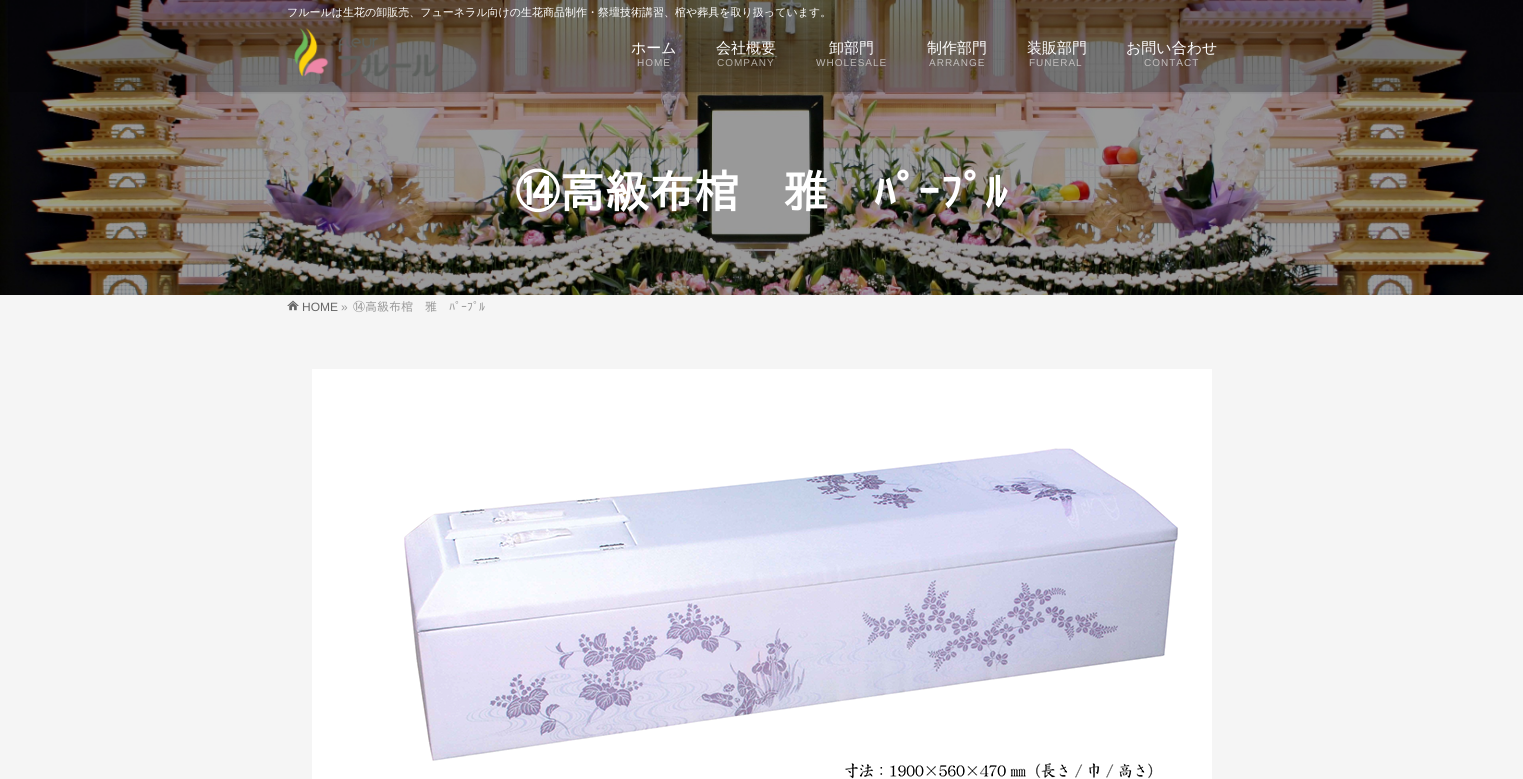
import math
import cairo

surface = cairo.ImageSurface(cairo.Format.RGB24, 1523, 779)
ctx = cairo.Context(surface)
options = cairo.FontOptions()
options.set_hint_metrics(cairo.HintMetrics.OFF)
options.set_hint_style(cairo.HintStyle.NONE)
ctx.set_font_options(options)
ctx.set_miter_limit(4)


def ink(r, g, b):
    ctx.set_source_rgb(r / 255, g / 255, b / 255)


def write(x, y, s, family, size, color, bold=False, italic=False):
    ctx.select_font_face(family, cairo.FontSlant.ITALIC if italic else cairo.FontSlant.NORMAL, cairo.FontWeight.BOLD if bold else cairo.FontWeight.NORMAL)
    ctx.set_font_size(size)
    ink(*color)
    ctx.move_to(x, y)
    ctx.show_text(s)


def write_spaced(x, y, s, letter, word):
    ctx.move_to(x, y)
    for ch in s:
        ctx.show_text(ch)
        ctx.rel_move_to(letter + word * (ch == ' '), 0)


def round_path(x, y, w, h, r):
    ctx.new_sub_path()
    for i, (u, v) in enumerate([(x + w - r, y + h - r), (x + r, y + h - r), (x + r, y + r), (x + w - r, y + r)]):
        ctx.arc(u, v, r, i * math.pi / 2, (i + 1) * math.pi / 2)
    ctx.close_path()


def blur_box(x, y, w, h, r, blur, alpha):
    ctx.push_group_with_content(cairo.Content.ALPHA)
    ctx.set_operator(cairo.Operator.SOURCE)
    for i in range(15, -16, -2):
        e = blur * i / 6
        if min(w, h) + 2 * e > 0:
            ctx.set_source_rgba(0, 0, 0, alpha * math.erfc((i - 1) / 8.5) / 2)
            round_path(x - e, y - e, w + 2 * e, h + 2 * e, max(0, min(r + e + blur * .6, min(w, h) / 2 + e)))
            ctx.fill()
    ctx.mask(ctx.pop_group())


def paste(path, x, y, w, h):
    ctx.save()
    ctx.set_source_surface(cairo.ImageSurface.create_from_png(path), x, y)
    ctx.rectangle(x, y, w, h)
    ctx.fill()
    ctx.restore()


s1 = dict(family="WenQuanYi Zen Hei Medium", size=11, color=(255, 255, 255))
s2 = dict(family="WenQuanYi Zen Hei Medium", size=15, color=(255, 255, 255))
s3 = dict(family="IPAPGothic", size=44.75, color=(255, 255, 255), bold=True)
s4 = dict(family="Liberation Sans", size=12, color=(102, 102, 102))
s5 = dict(family="Liberation Sans", size=12, color=(153, 153, 153))
s6 = dict(family="IPAPGothic", size=12, color=(153, 153, 153))

ink(245, 245, 245)
ctx.paint()
paste("pic2.png", 0, 0, 1523, 295)
ctx.save()
ctx.rectangle(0, 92, 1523, 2)
ctx.clip()
ink(0, 0, 0)
blur_box(0, 1, 1523, 92, 0, 1.5, 0.1)
ctx.restore()
ctx.set_source_rgba(0, 0, 0, 0.25)
ctx.rectangle(8, 0, 1515, 92)
ctx.fill()
write(287, 16, "フルールは生花の卸販売、フューネラル向けの生花商品制作・祭壇技術講習、棺や葬具を取り扱っています。", **s1)
paste("pic1.png", 294, 28, 145, 49)
write(631, 53, "ホーム", **s2)
ctx.select_font_face("Liberation Sans")
ctx.set_font_size(10)
ink(194, 191, 190)
write_spaced(637, 66, "HOME", 1, 0)
write(716, 53, "会社概要", **s2)
ctx.select_font_face("Liberation Sans")
ctx.set_font_size(10)
ink(180, 175, 167)
write_spaced(717, 66, "COMPANY", 1, 0)
write(829, 53, "卸部門", **s2)
ctx.select_font_face("Liberation Sans")
ctx.set_font_size(10)
ink(190, 185, 182)
write_spaced(816, 66, "WHOLESALE", 1, 0)
write(927, 53, "制作部門", **s2)
ctx.select_font_face("Liberation Sans")
ctx.set_font_size(10)
ink(194, 191, 190)
write_spaced(929, 66, "ARRANGE", 1, 0)
write(1027, 53, "装販部門", **s2)
ctx.select_font_face("Liberation Sans")
ctx.set_font_size(10)
ink(194, 191, 190)
write_spaced(1029, 66, "FUNERAL", 1, 0)
write(1126, 53, "お問い合わせ", **s2)
ctx.select_font_face("Liberation Sans")
ctx.set_font_size(10)
ink(194, 191, 190)
write_spaced(1144, 66, "CONTACT", 1, 0)
write(515, 208, "⑭高級布棺　雅　ﾊﾟｰﾌﾟﾙ", **s3)
paste("pic3.png", 287, 300, 12, 11)
write(302, 311, "HOME", **s4)
write(341, 311, "»", **s5)
write(353, 311, "⑭高級布棺　雅　ﾊﾟｰﾌﾟﾙ", **s6)
paste("pic4.png", 312, 369, 900, 410)
surface.write_to_png("screenshot.png")
